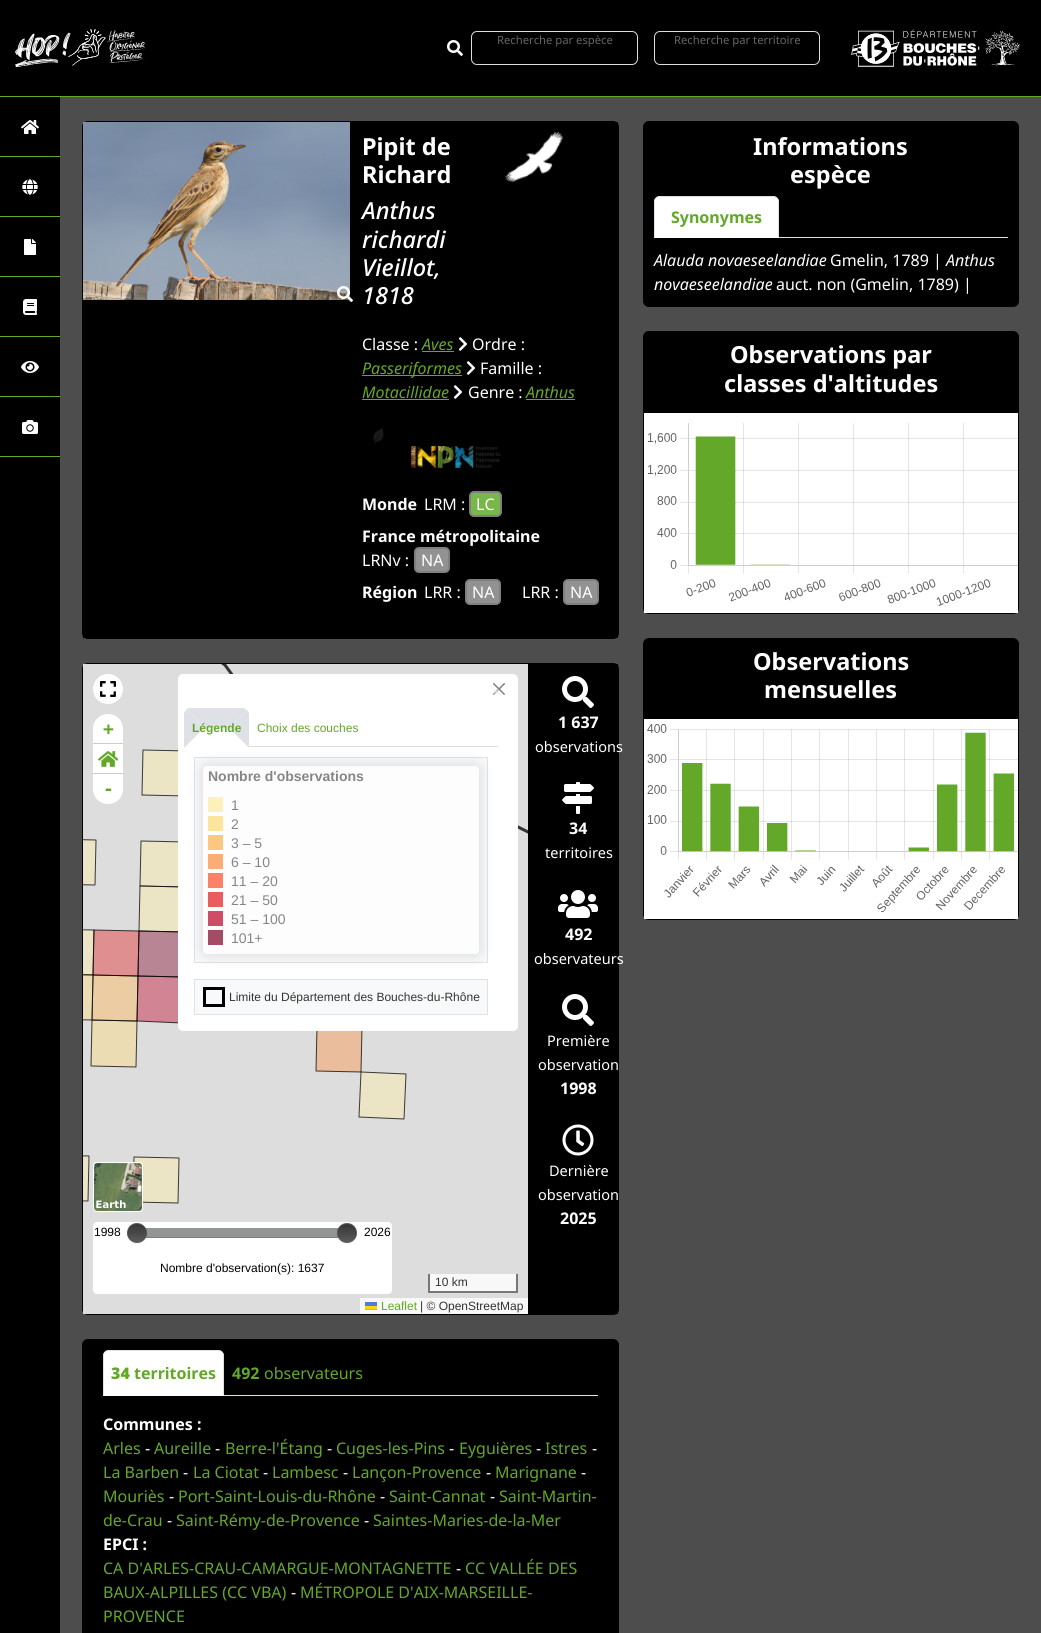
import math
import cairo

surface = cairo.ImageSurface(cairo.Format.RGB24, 1041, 1633)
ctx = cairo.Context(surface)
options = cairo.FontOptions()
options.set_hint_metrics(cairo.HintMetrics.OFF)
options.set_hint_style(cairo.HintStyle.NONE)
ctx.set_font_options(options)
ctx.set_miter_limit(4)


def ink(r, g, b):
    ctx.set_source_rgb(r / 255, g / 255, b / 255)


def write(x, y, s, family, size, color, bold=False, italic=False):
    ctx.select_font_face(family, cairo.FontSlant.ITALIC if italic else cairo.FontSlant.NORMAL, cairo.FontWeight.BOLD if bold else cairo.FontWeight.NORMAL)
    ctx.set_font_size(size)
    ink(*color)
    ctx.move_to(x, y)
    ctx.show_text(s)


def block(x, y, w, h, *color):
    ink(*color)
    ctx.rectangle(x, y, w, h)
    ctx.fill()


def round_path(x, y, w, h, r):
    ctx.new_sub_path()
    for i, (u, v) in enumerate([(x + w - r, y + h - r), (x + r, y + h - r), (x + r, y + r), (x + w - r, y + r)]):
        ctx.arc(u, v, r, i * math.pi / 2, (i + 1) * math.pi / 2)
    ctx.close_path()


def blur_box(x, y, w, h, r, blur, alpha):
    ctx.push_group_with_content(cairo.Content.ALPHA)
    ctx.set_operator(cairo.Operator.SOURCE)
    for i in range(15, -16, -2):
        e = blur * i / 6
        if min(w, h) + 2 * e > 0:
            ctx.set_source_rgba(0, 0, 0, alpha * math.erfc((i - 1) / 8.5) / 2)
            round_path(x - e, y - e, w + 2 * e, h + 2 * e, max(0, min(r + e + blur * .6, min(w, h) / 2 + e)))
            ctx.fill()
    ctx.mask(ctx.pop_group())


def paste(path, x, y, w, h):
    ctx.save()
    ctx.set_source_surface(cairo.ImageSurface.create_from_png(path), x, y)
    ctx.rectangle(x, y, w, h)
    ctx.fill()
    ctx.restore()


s1 = dict(family="Noto Sans", size=11.25, color=(102, 102, 102))
s2 = dict(family="Noto Sans", size=23.5, color=(255, 255, 255), bold=True)
s3 = dict(family="Noto Sans Medium", size=23.5, color=(255, 255, 255), italic=True)
s4 = dict(family="Noto Sans", size=16, color=(255, 255, 255))
s5 = dict(family="Noto Sans", size=16, color=(99, 168, 41), italic=True)
s6 = dict(family="Noto Sans", size=16, color=(255, 255, 255), bold=True)
s7 = dict(family="DejaVu Sans Mono", size=18, color=(99, 168, 41), bold=True)
s8 = dict(family="Liberation Sans", size=12, color=(231, 231, 231))
s9 = dict(family="Liberation Sans", size=12, color=(99, 168, 41), bold=True)
s10 = dict(family="Liberation Sans", size=12, color=(99, 168, 41))
s11 = dict(family="Liberation Sans", size=14, color=(134, 134, 135), bold=True)
s12 = dict(family="Liberation Sans", size=14, color=(134, 134, 135))
s13 = dict(family="Liberation Sans", size=12, color=(51, 51, 51))
s14 = dict(family="Liberation Sans", size=12, color=(0, 0, 0))
s15 = dict(family="Noto Sans", size=14.5, color=(255, 255, 255))
s16 = dict(family="Noto Sans Black", size=16, color=(99, 168, 41))
s17 = dict(family="Noto Sans", size=16, color=(99, 168, 41), bold=True)
s18 = dict(family="Noto Sans", size=16, color=(99, 168, 41))
s19 = dict(family="Noto Sans", size=16, color=(255, 255, 255), italic=True)

ink(77, 77, 77)
ctx.paint()
block(0, 0, 1041, 96, 0, 0, 0)
block(0, 96, 1041, 1, 99, 168, 41)
paste("pic1.png", 15, 29, 130, 38)
paste("pic2.png", 447, 40, 16, 16)
round_path(471.5, 31.5, 166, 33, 5.5)
ink(221, 221, 221)
ctx.set_line_width(1)
ctx.stroke()
write(497, 44, "Recherche par espèce", **s1)
round_path(654.5, 31.5, 165, 33, 5.5)
ink(221, 221, 221)
ctx.stroke()
write(674, 44, "Recherche par territoire", **s1)
paste("pic3.png", 851, 29, 169, 38)
block(0, 97, 60, 1536, 0, 0, 0)
block(0, 156, 60, 1, 99, 168, 41)
paste("pic4.png", 21, 120, 18, 14)
block(0, 216, 60, 1, 99, 168, 41)
paste("pic5.png", 22, 179, 16, 16)
block(0, 276, 60, 1, 99, 168, 41)
paste("pic6.png", 24, 239, 12, 16)
block(0, 336, 60, 1, 99, 168, 41)
paste("pic7.png", 23, 299, 14, 16)
block(0, 396, 60, 1, 99, 168, 41)
paste("pic8.png", 21, 361, 18, 12)
block(0, 456, 60, 1, 99, 168, 41)
paste("pic9.png", 22, 420, 16, 14)
ink(0, 0, 0)
round_path(82, 121, 537, 518, 6)
ctx.fill()
round_path(82.5, 121.5, 536, 517, 5.5)
ctx.set_source_rgba(0, 0, 0, 0.18)
ctx.stroke()
block(83, 636, 2, 2, 0, 0, 0)
paste("pic10.png", 83, 122, 267, 178)
paste("pic11.png", 337, 286, 16, 16)
block(616, 122, 2, 516, 0, 0, 0)
write(362, 155, "Pipit de", **s2)
write(362, 183, "Richard", **s2)
write(362, 219, "Anthus", **s3)
write(362, 248, "richardi", **s3)
write(362, 276, "Vieillot,", **s3)
write(362, 304, "1818", **s3)
paste("pic12.png", 505, 132, 58, 50)
write(362, 350, "Classe :", **s4)
write(422, 350, "Aves", **s5)
block(422, 351, 32, 1, 99, 168, 41)
paste("pic13.png", 458, 337, 10, 14)
write(472, 350, "Ordre :", **s4)
block(362, 375, 100, 1, 99, 168, 41)
write(362, 374, "Passeriformes", **s5)
paste("pic13.png", 466, 361, 10, 14)
write(480, 374, "Famille :", **s4)
write(362, 398, "Motacillidae", **s5)
block(362, 399, 87, 1, 99, 168, 41)
paste("pic13.png", 453, 385, 10, 14)
write(468, 398, "Genre :", **s4)
write(526, 398, "Anthus", **s5)
block(526, 399, 49, 1, 99, 168, 41)
paste("pic14.png", 373, 428, 11, 16)
paste("pic15.png", 411, 446, 90, 22)
write(362, 510, "Monde", **s6)
write(424, 510, "LRM :", **s4)
ink(120, 183, 74)
round_path(470, 492, 31, 24, 4)
ctx.fill_preserve()
ink(128, 128, 128)
ctx.set_line_width(2)
ctx.stroke()
write(476, 510, "LC", **s4)
write(362, 542, "France métropolitaine", **s6)
write(362, 566, "LRNv :", **s4)
ink(145, 146, 145)
round_path(415, 548, 34, 24, 4)
ctx.fill_preserve()
ink(128, 128, 128)
ctx.stroke()
write(421, 566, "NA", **s4)
write(362, 598, "Région", **s6)
write(424, 598, "LRR :", **s4)
ink(145, 146, 145)
round_path(466, 580, 34, 24, 4)
ctx.fill_preserve()
ink(128, 128, 128)
ctx.stroke()
write(472, 598, "NA", **s4)
write(522, 598, "LRR :", **s4)
ink(145, 146, 145)
round_path(564, 580, 34, 24, 4)
ctx.fill_preserve()
ink(128, 128, 128)
ctx.stroke()
write(570, 598, "NA", **s4)
ink(0, 0, 0)
round_path(82, 663, 537, 652, 6)
ctx.fill()
round_path(82.5, 663.5, 536, 651, 5.5)
ctx.set_source_rgba(0, 0, 0, 0.18)
ctx.set_line_width(1)
ctx.stroke()
block(616, 664, 2, 650, 0, 0, 0)
block(83, 664, 445, 650, 221, 221, 221)
paste("pic16.png", 83, 664, 445, 540)
ink(255, 255, 255)
ctx.arc(108, 689, 15, 0, 2 * math.pi)
ctx.fill()
paste("pic17.png", 100, 681, 16, 16)
ctx.new_path()
ctx.move_to(108, 714)
ctx.curve_to(116.5, 714, 123, 720.5, 123, 729)
ctx.line_to(123, 744)
ctx.line_to(93, 744)
ctx.line_to(93, 729)
ctx.curve_to(93, 720.5, 99.5, 714, 108, 714)
ctx.close_path()
ctx.fill()
block(93, 743, 30, 1, 204, 204, 204)
write(103, 735, "+", **s7)
block(93, 744, 30, 29, 255, 255, 255)
block(93, 773, 30, 1, 204, 204, 204)
paste("pic18.png", 98, 751, 21, 16)
ink(255, 255, 255)
ctx.new_path()
ctx.move_to(93, 774)
ctx.line_to(123, 774)
ctx.line_to(123, 789)
ctx.curve_to(123, 797.5, 116.5, 804, 108, 804)
ctx.curve_to(99.5, 804, 93, 797.5, 93, 789)
ctx.close_path()
ctx.fill()
write(103, 795, "-", **s7)
ink(255, 255, 255)
round_path(178, 674, 340, 357, 5)
ctx.fill()
paste("pic19.png", 493, 683, 12, 12)
write(493, 696, "×", **s8)
block(249, 746, 249, 1, 221, 221, 221)
ink(222, 226, 230)
ctx.new_path()
ctx.move_to(190, 708)
ctx.line_to(243, 708)
ctx.curve_to(244, 708, 246, 709, 247, 710)
ctx.line_to(229, 728)
ctx.line_to(204, 728)
ctx.line_to(186, 710)
ctx.curve_to(187, 709, 188, 708, 190, 708)
ctx.close_path()
ctx.fill()
ctx.new_path()
ctx.move_to(247, 710)
ctx.line_to(229, 728)
ctx.line_to(249, 748)
ctx.line_to(249, 714)
ctx.curve_to(249, 712.5, 248, 711, 247, 710)
ctx.close_path()
ctx.fill()
ink(255, 255, 255)
ctx.new_path()
ctx.move_to(249, 748)
ctx.line_to(229, 728)
ctx.line_to(204, 728)
ctx.line_to(184, 748)
ctx.close_path()
ctx.fill()
ink(222, 226, 230)
ctx.new_path()
ctx.move_to(184, 748)
ctx.line_to(184, 714)
ctx.curve_to(184, 712.5, 185, 711, 186, 710)
ctx.line_to(204, 728)
ctx.close_path()
ctx.fill()
write(192, 732, "Légende", **s9)
write(257, 732, "Choix des couches", **s10)
ink(248, 249, 250)
ctx.rectangle(194.5, 757.5, 293, 205)
ctx.fill_preserve()
ink(222, 226, 230)
ctx.stroke()
ink(0, 0, 0)
blur_box(203, 766, 276, 188, 4, 7.5, 0.14)
ink(253, 253, 254)
round_path(203, 766, 276, 188, 4)
ctx.fill()
write(208, 781, "Nombre d'observations", **s11)
block(208, 797, 15, 15, 253, 241, 187)
write(231, 810, "1", **s12)
block(208, 816, 15, 15, 252, 227, 158)
write(231, 829, "2", **s12)
block(208, 835, 15, 15, 252, 199, 128)
write(231, 848, "3 – 5", **s12)
block(208, 854, 15, 15, 252, 173, 117)
write(231, 867, "6 – 10", **s12)
block(208, 873, 15, 15, 251, 129, 104)
write(231, 886, "11 – 20", **s12)
block(208, 892, 15, 15, 233, 93, 95)
write(231, 905, "21 – 50", **s12)
block(208, 911, 15, 15, 207, 75, 102)
write(231, 924, "51 – 100", **s12)
block(208, 930, 15, 15, 164, 75, 102)
write(231, 943, "101+", **s12)
ink(248, 249, 250)
ctx.rectangle(194.5, 979.5, 293, 35)
ctx.fill_preserve()
ink(222, 226, 230)
ctx.stroke()
ctx.rectangle(204.5, 988.5, 19, 17)
ink(0, 0, 0)
ctx.set_line_width(3)
ctx.stroke()
write(229, 1001, "Limite du Département des Bouches-du-Rhône", **s13)
paste("pic20.png", 94, 1163, 48, 48)
round_path(93.5, 1162.5, 49, 49, 3.5)
ink(255, 255, 255)
ctx.set_line_width(1)
ctx.stroke()
round_path(93.5, 1222.5, 298, 71, 3.5)
ctx.fill_preserve()
ctx.stroke()
write(94, 1236, "1998", **s14)
block(145, 1228, 194, 10, 144, 149, 150)
ctx.set_source_rgba(0, 0, 0, 0.15)
ctx.new_path()
ctx.move_to(137, 1234)
ctx.curve_to(137, 1236, 139, 1238, 141, 1238)
ctx.line_to(343, 1238)
ctx.curve_to(347, 1238, 347, 1234, 347, 1232)
ctx.curve_to(347, 1234, 346, 1237, 343, 1237)
ctx.line_to(141, 1237)
ctx.curve_to(139, 1237, 138, 1236, 137, 1234)
ctx.close_path()
ctx.fill()
ink(0, 0, 0)
blur_box(127, 1224, 20, 20, 10, 1, 0.05)
gradient = cairo.LinearGradient(137, 1223, 137, 1243)
gradient.add_color_stop_rgba(0, 0.2, 0.2, 0.2, 1)
gradient.add_color_stop_rgba(1, 0.365, 0.365, 0.365, 1)
ctx.set_source(gradient)
ctx.arc(137, 1233, 10, 0, 2 * math.pi)
ctx.fill()
ctx.set_source_rgba(1, 1, 1, 0.2)
ctx.new_path()
ctx.move_to(137, 1224)
ctx.curve_to(144.5, 1224, 147.5, 1230, 146.5, 1236)
ctx.curve_to(147, 1233.5, 147, 1231, 146, 1229)
ctx.curve_to(141.5, 1217.5, 124, 1224, 127.5, 1236)
ctx.curve_to(126.5, 1230, 129.5, 1224, 137, 1224)
ctx.close_path()
ctx.fill()
ink(0, 0, 0)
blur_box(337, 1224, 20, 20, 10, 1, 0.05)
gradient = cairo.LinearGradient(347, 1223, 347, 1243)
gradient.add_color_stop_rgba(0, 0.2, 0.2, 0.2, 1)
gradient.add_color_stop_rgba(1, 0.365, 0.365, 0.365, 1)
ctx.set_source(gradient)
ctx.arc(347, 1233, 10, 0, 2 * math.pi)
ctx.fill()
ctx.set_source_rgba(1, 1, 1, 0.2)
ctx.new_path()
ctx.move_to(347, 1224)
ctx.curve_to(354.5, 1224, 357.5, 1230, 356.5, 1236)
ctx.curve_to(360, 1224, 342.5, 1217.5, 338, 1229)
ctx.curve_to(337, 1231, 337, 1233.5, 337.5, 1236)
ctx.curve_to(336.5, 1230, 339.5, 1224, 347, 1224)
ctx.close_path()
ctx.fill()
write(364, 1236, "2026", **s14)
write(160, 1272, "Nombre d'observation(s): 1637", **s14)
block(430, 1274, 86, 17, 248, 248, 248)
block(516, 1274, 2, 19, 119, 119, 119)
block(428, 1291, 90, 2, 119, 119, 119)
block(428, 1274, 2, 19, 119, 119, 119)
write(435, 1286, "10 km", **s13)
block(360, 1298, 168, 16, 248, 248, 248)
write(381, 1310, "Leaflet", **s10)
block(365, 1302, 12, 4, 76, 123, 225)
block(365, 1306, 12, 3, 255, 213, 0)
block(365, 1309, 12, 1, 224, 188, 0)
write(420, 1310, "| © OpenStreetMap", **s13)
paste("pic21.png", 562, 676, 32, 32)
write(558, 728, "1 637", **s6)
write(535, 752, "observations", **s15)
paste("pic22.png", 562, 782, 32, 32)
write(569, 834, "34", **s6)
write(545, 858, "territoires", **s15)
paste("pic23.png", 558, 890, 40, 28)
write(565, 940, "492", **s6)
write(534, 964, "observateurs", **s15)
paste("pic21.png", 562, 994, 32, 32)
write(547, 1046, "Première", **s15)
write(538, 1070, "observation", **s15)
write(560, 1094, "1998", **s6)
paste("pic24.png", 562, 1124, 32, 32)
write(549, 1176, "Dernière", **s15)
write(538, 1200, "observation", **s15)
write(560, 1224, "2025", **s6)
ink(0, 0, 0)
round_path(82, 1339, 537, 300, 6)
ctx.fill()
round_path(82.5, 1339.5, 536, 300, 5.5)
ctx.set_source_rgba(0, 0, 0, 0.18)
ctx.stroke()
block(224, 1395, 374, 1, 222, 226, 230)
ink(255, 255, 255)
ctx.new_path()
ctx.move_to(109, 1350)
ctx.line_to(218, 1350)
ctx.curve_to(221.5, 1350, 224, 1352.5, 224, 1356)
ctx.line_to(224, 1396)
ctx.line_to(103, 1396)
ctx.line_to(103, 1356)
ctx.curve_to(103, 1352.5, 105.5, 1350, 109, 1350)
ctx.close_path()
ctx.fill()
ink(222, 226, 230)
ctx.new_path()
ctx.move_to(109, 1350)
ctx.curve_to(108, 1350, 106, 1351, 105, 1352)
ctx.curve_to(106, 1352, 108, 1351, 109, 1351)
ctx.line_to(218, 1351)
ctx.curve_to(220, 1351, 221, 1352, 222, 1352)
ctx.curve_to(221, 1351, 220, 1350, 218, 1350)
ctx.close_path()
ctx.fill()
ctx.new_path()
ctx.move_to(224, 1396)
ctx.line_to(224, 1356)
ctx.curve_to(224, 1354, 223, 1353, 222, 1352)
ctx.curve_to(222, 1353, 223, 1354, 223, 1356)
ctx.line_to(223, 1395)
ctx.close_path()
ctx.fill()
ink(255, 255, 255)
ctx.new_path()
ctx.move_to(224, 1396)
ctx.line_to(223, 1395)
ctx.line_to(104, 1395)
ctx.line_to(103, 1396)
ctx.close_path()
ctx.fill()
ink(222, 226, 230)
ctx.new_path()
ctx.move_to(103, 1396)
ctx.line_to(104, 1395)
ctx.line_to(104, 1356)
ctx.curve_to(104, 1354, 104, 1353, 105, 1352)
ctx.curve_to(104, 1353, 103, 1354, 103, 1356)
ctx.close_path()
ctx.fill()
write(111, 1379, "34", **s16)
write(134, 1379, "territoires", **s17)
write(232, 1379, "492", **s17)
write(264, 1379, "observateurs", **s18)
write(103, 1430, "Communes :", **s6)
write(103, 1454, "Arles", **s18)
write(145, 1454, "-", **s4)
write(154, 1454, "Aureille", **s18)
write(215, 1454, "-", **s4)
write(225, 1454, "Berre-l'Étang", **s18)
write(327, 1454, "-", **s4)
write(336, 1454, "Cuges-les-Pins", **s18)
write(449, 1454, "-", **s4)
write(459, 1454, "Eyguières", **s18)
write(536, 1454, "-", **s4)
write(545, 1454, "Istres", **s18)
write(592, 1454, "-", **s4)
write(103, 1478, "La Barben", **s18)
write(183, 1478, "-", **s4)
write(193, 1478, "La Ciotat", **s18)
write(263, 1478, "-", **s4)
write(272, 1478, "Lambesc", **s18)
write(343, 1478, "-", **s4)
write(352, 1478, "Lançon-Provence", **s18)
write(486, 1478, "-", **s4)
write(495, 1478, "Marignane", **s18)
write(581, 1478, "-", **s4)
write(103, 1502, "Mouriès", **s18)
write(169, 1502, "-", **s4)
write(178, 1502, "Port-Saint-Louis-du-Rhône", **s18)
write(380, 1502, "-", **s4)
write(389, 1502, "Saint-Cannat", **s18)
write(490, 1502, "-", **s4)
write(499, 1502, "Saint-Martin-", **s18)
write(103, 1526, "de-Crau", **s18)
write(167, 1526, "-", **s4)
write(176, 1526, "Saint-Rémy-de-Provence", **s18)
write(364, 1526, "-", **s4)
write(373, 1526, "Saintes-Maries-de-la-Mer", **s18)
write(103, 1550, "EPCI :", **s6)
write(103, 1574, "CA D'ARLES-CRAU-CAMARGUE-MONTAGNETTE", **s18)
write(456, 1574, "-", **s4)
write(465, 1574, "CC VALLÉE DES", **s18)
write(103, 1598, "BAUX-ALPILLES (CC VBA)", **s18)
write(291, 1598, "-", **s4)
write(300, 1598, "MÉTROPOLE D'AIX-MARSEILLE-", **s18)
write(103, 1622, "PROVENCE", **s18)
ink(0, 0, 0)
round_path(643, 121, 376, 186, 6)
ctx.fill()
round_path(643.5, 121.5, 375, 185, 5.5)
ctx.set_source_rgba(0, 0, 0, 0.18)
ctx.stroke()
write(753, 155, "Informations", **s2)
write(790, 183, "espèce", **s2)
block(779, 237, 229, 1, 222, 226, 230)
ink(255, 255, 255)
ctx.new_path()
ctx.move_to(660, 196)
ctx.line_to(773, 196)
ctx.curve_to(776.5, 196, 779, 198.5, 779, 202)
ctx.line_to(779, 238)
ctx.line_to(654, 238)
ctx.line_to(654, 202)
ctx.curve_to(654, 198.5, 656.5, 196, 660, 196)
ctx.close_path()
ctx.fill()
ink(222, 226, 230)
ctx.new_path()
ctx.move_to(660, 196)
ctx.curve_to(658, 196, 657, 197, 656, 198)
ctx.curve_to(657, 198, 658, 197, 660, 197)
ctx.line_to(773, 197)
ctx.curve_to(774, 197, 776, 198, 777, 198)
ctx.curve_to(776, 197, 774, 196, 773, 196)
ctx.close_path()
ctx.fill()
ctx.new_path()
ctx.move_to(779, 238)
ctx.line_to(779, 202)
ctx.curve_to(779, 200, 778, 199, 777, 198)
ctx.curve_to(778, 199, 778, 200, 778, 202)
ctx.line_to(778, 237)
ctx.close_path()
ctx.fill()
ink(255, 255, 255)
ctx.new_path()
ctx.move_to(779, 238)
ctx.line_to(778, 237)
ctx.line_to(655, 237)
ctx.line_to(654, 238)
ctx.close_path()
ctx.fill()
ink(222, 226, 230)
ctx.new_path()
ctx.move_to(654, 238)
ctx.line_to(655, 237)
ctx.line_to(655, 202)
ctx.curve_to(655, 200, 656, 199, 656, 198)
ctx.curve_to(655, 199, 654, 200, 654, 202)
ctx.close_path()
ctx.fill()
write(671, 223, "Synonymes", **s17)
write(654, 266, "Alauda novaeseelandiae", **s19)
write(830, 266, "Gmelin, 1789 |", **s4)
write(946, 266, "Anthus", **s19)
write(654, 290, "novaeseelandiae", **s19)
write(776, 290, "auct. non (Gmelin, 1789) |", **s4)
ink(0, 0, 0)
round_path(643, 331, 376, 283, 6)
ctx.fill()
round_path(643.5, 331.5, 375, 282, 5.5)
ctx.set_source_rgba(0, 0, 0, 0.18)
ctx.stroke()
write(730, 363, "Observations par", **s2)
write(724, 392, "classes d'altitudes", **s2)
block(644, 413, 374, 200, 255, 255, 255)
paste("pic25.png", 647, 423, 371, 183)
ink(0, 0, 0)
round_path(643, 638, 376, 282, 6)
ctx.fill()
round_path(643.5, 638.5, 375, 281, 5.5)
ctx.set_source_rgba(0, 0, 0, 0.18)
ctx.stroke()
write(753, 670, "Observations", **s2)
write(764, 698, "mensuelles", **s2)
block(644, 719, 374, 200, 255, 255, 255)
paste("pic26.png", 647, 724, 371, 188)
surface.write_to_png("screenshot.png")
